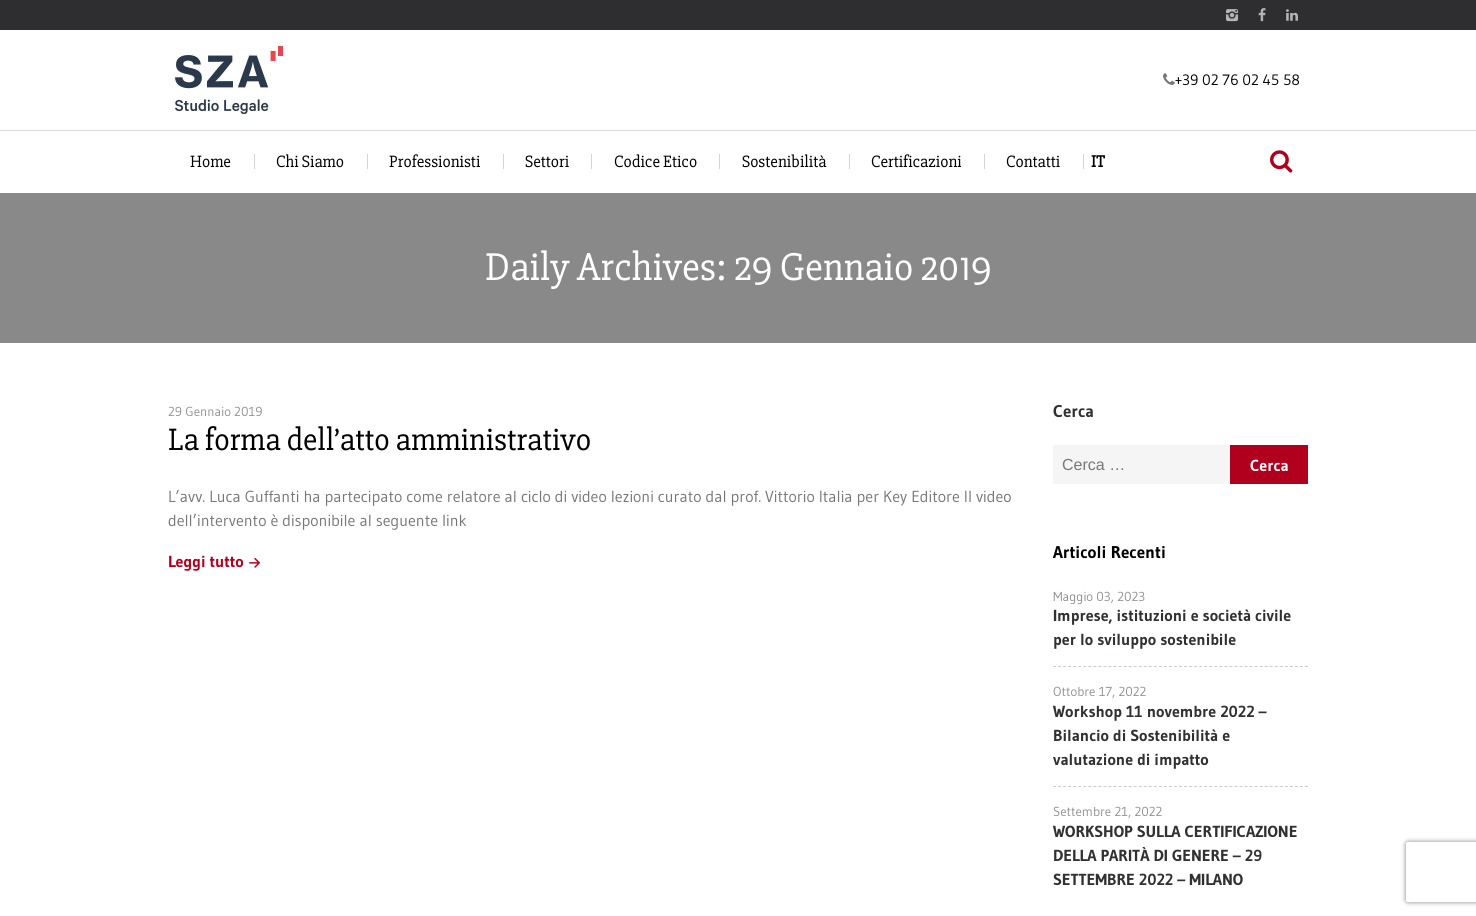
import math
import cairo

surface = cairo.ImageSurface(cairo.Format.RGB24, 1476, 916)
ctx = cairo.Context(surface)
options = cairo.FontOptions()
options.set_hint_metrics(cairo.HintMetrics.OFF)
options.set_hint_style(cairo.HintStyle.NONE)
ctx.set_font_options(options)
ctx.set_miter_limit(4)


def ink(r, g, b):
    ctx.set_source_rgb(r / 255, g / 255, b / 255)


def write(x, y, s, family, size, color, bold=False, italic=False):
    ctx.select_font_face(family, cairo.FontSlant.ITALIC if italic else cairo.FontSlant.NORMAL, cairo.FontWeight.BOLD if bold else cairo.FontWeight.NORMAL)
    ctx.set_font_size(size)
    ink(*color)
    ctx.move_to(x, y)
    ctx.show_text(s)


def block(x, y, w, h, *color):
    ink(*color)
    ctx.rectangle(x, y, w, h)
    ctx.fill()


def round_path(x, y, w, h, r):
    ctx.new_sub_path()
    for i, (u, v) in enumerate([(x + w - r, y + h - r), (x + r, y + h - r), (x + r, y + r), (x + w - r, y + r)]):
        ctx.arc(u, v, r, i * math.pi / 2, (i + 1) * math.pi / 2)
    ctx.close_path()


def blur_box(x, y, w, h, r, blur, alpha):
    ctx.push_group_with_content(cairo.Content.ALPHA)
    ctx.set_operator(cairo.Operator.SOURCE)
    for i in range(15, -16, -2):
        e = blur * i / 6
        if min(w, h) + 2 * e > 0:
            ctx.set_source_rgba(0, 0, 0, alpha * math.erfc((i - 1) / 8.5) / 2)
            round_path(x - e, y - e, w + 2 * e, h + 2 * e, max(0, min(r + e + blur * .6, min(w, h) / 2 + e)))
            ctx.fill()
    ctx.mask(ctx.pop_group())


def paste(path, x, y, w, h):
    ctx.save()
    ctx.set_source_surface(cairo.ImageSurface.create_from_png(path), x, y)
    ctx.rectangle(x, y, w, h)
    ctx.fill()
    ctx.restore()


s1 = dict(family="Gudea", size=15, color=(0, 0, 0))
s2 = dict(family="Slabo 27px", size=17, color=(0, 0, 0))
s3 = dict(family="Slabo 27px", size=17, color=(0, 0, 0), bold=True)
s4 = dict(family="Slabo 27px", size=40, color=(255, 255, 255))
s5 = dict(family="Gudea", size=13, color=(144, 144, 144))
s6 = dict(family="Slabo 27px", size=32, color=(0, 0, 0))
s7 = dict(family="Gudea", size=16, color=(119, 119, 119))
s8 = dict(family="Gudea", size=16, color=(177, 0, 30), bold=True)
s9 = dict(family="Gudea", size=17, color=(48, 49, 51), bold=True)
s10 = dict(family="Liberation Sans", size=16, color=(119, 119, 119))
s11 = dict(family="Gudea", size=16, color=(255, 255, 255), bold=True)
s12 = dict(family="Gudea", size=17, color=(0, 0, 0), bold=True)
s13 = dict(family="Gudea", size=16, color=(48, 49, 51), bold=True)

ink(255, 255, 255)
ctx.paint()
block(0, 0, 1476, 30, 46, 46, 48)
paste("pic1.png", 1226, 9, 13, 13)
paste("pic2.png", 1258, 8, 8, 14)
paste("pic3.png", 1286, 9, 12, 12)
paste("pic4.png", 168, 40, 120, 78)
paste("pic5.png", 1163, 73, 12, 12)
write(1175, 85, "+39 02 76 02 45 58", **s1)
block(0, 130, 1476, 1, 218, 218, 218)
write(190, 167, "Home", **s2)
block(254, 154, 1, 15, 213, 213, 214)
write(276, 167, "Chi Siamo", **s2)
block(367, 154, 1, 15, 213, 213, 214)
write(389, 167, "Professionisti", **s2)
block(503, 154, 1, 15, 213, 213, 214)
write(525, 167, "Settori", **s2)
block(591, 154, 1, 15, 213, 213, 214)
write(614, 167, "Codice Etico", **s2)
block(719, 154, 1, 15, 213, 213, 214)
write(742, 167, "Sostenibilità", **s2)
block(849, 154, 1, 15, 213, 213, 214)
write(871, 167, "Certificazioni", **s2)
block(984, 154, 1, 15, 213, 213, 214)
write(1006, 167, "Contatti", **s2)
block(1083, 154, 1, 15, 213, 213, 214)
write(1091, 167, "IT", **s3)
paste("pic6.png", 1270, 150, 23, 23)
block(0, 193, 1476, 150, 137, 137, 138)
write(485, 280, "Daily Archives: 29 Gennaio 2019", **s4)
write(168, 416, "29 Gennaio 2019", **s5)
write(168, 450, "La forma dell’atto amministrativo", **s6)
write(168, 502, "L’avv. Luca Guffanti ha partecipato come relatore al ciclo di video lezioni curato dal prof. Vittorio Italia per Key Editore Il video", **s7)
write(168, 526, "dell’intervento è disponibile al seguente link", **s7)
write(168, 567, "Leggi tutto", **s8)
paste("pic7.png", 249, 558, 12, 10)
write(1053, 417, "Cerca", **s9)
block(1053, 445, 177, 39, 245, 245, 245)
write(1062, 470, "Cerca …", **s10)
block(1230, 445, 78, 39, 177, 0, 30)
write(1250, 471, "Cerca", **s11)
write(1053, 558, "Articoli Recenti", **s12)
ctx.new_path()
ctx.move_to(1053, 666.5)
ctx.line_to(1308, 666.5)
ink(204, 204, 204)
ctx.set_line_width(1)
ctx.set_dash([3, 2.04])
ctx.stroke()
write(1053, 601, "Maggio 03, 2023", **s5)
write(1053, 621, "Imprese, istituzioni e società civile", **s13)
write(1053, 645, "per lo sviluppo sostenibile", **s13)
ctx.new_path()
ctx.move_to(1053, 786.5)
ctx.line_to(1308, 786.5)
ink(204, 204, 204)
ctx.stroke()
write(1053, 696, "Ottobre 17, 2022", **s5)
write(1053, 717, "Workshop 11 novembre 2022 –", **s13)
write(1053, 741, "Bilancio di Sostenibilità e", **s13)
write(1053, 765, "valutazione di impatto", **s13)
write(1053, 816, "Settembre 21, 2022", **s5)
write(1053, 837, "WORKSHOP SULLA CERTIFICAZIONE", **s13)
write(1053, 861, "DELLA PARITÀ DI GENERE – 29", **s13)
write(1053, 885, "SETTEMBRE 2022 – MILANO", **s13)
ctx.save()
ctx.set_fill_rule(cairo.FillRule.EVEN_ODD)
ctx.new_path()
ctx.move_to(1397, 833)
ctx.line_to(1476, 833)
ctx.line_to(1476, 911)
ctx.line_to(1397, 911)
ctx.close_path()
ctx.move_to(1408, 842)
ctx.line_to(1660, 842)
ctx.curve_to(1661, 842, 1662, 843, 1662, 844)
ctx.line_to(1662, 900)
ctx.curve_to(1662, 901, 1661, 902, 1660, 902)
ctx.line_to(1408, 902)
ctx.curve_to(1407, 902, 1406, 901, 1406, 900)
ctx.line_to(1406, 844)
ctx.curve_to(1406, 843, 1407, 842, 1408, 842)
ctx.close_path()
ctx.clip()
ink(128, 128, 128)
blur_box(1406, 842, 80, 60, 2, 2.5, 1)
ctx.restore()
surface.write_to_png("screenshot.png")
